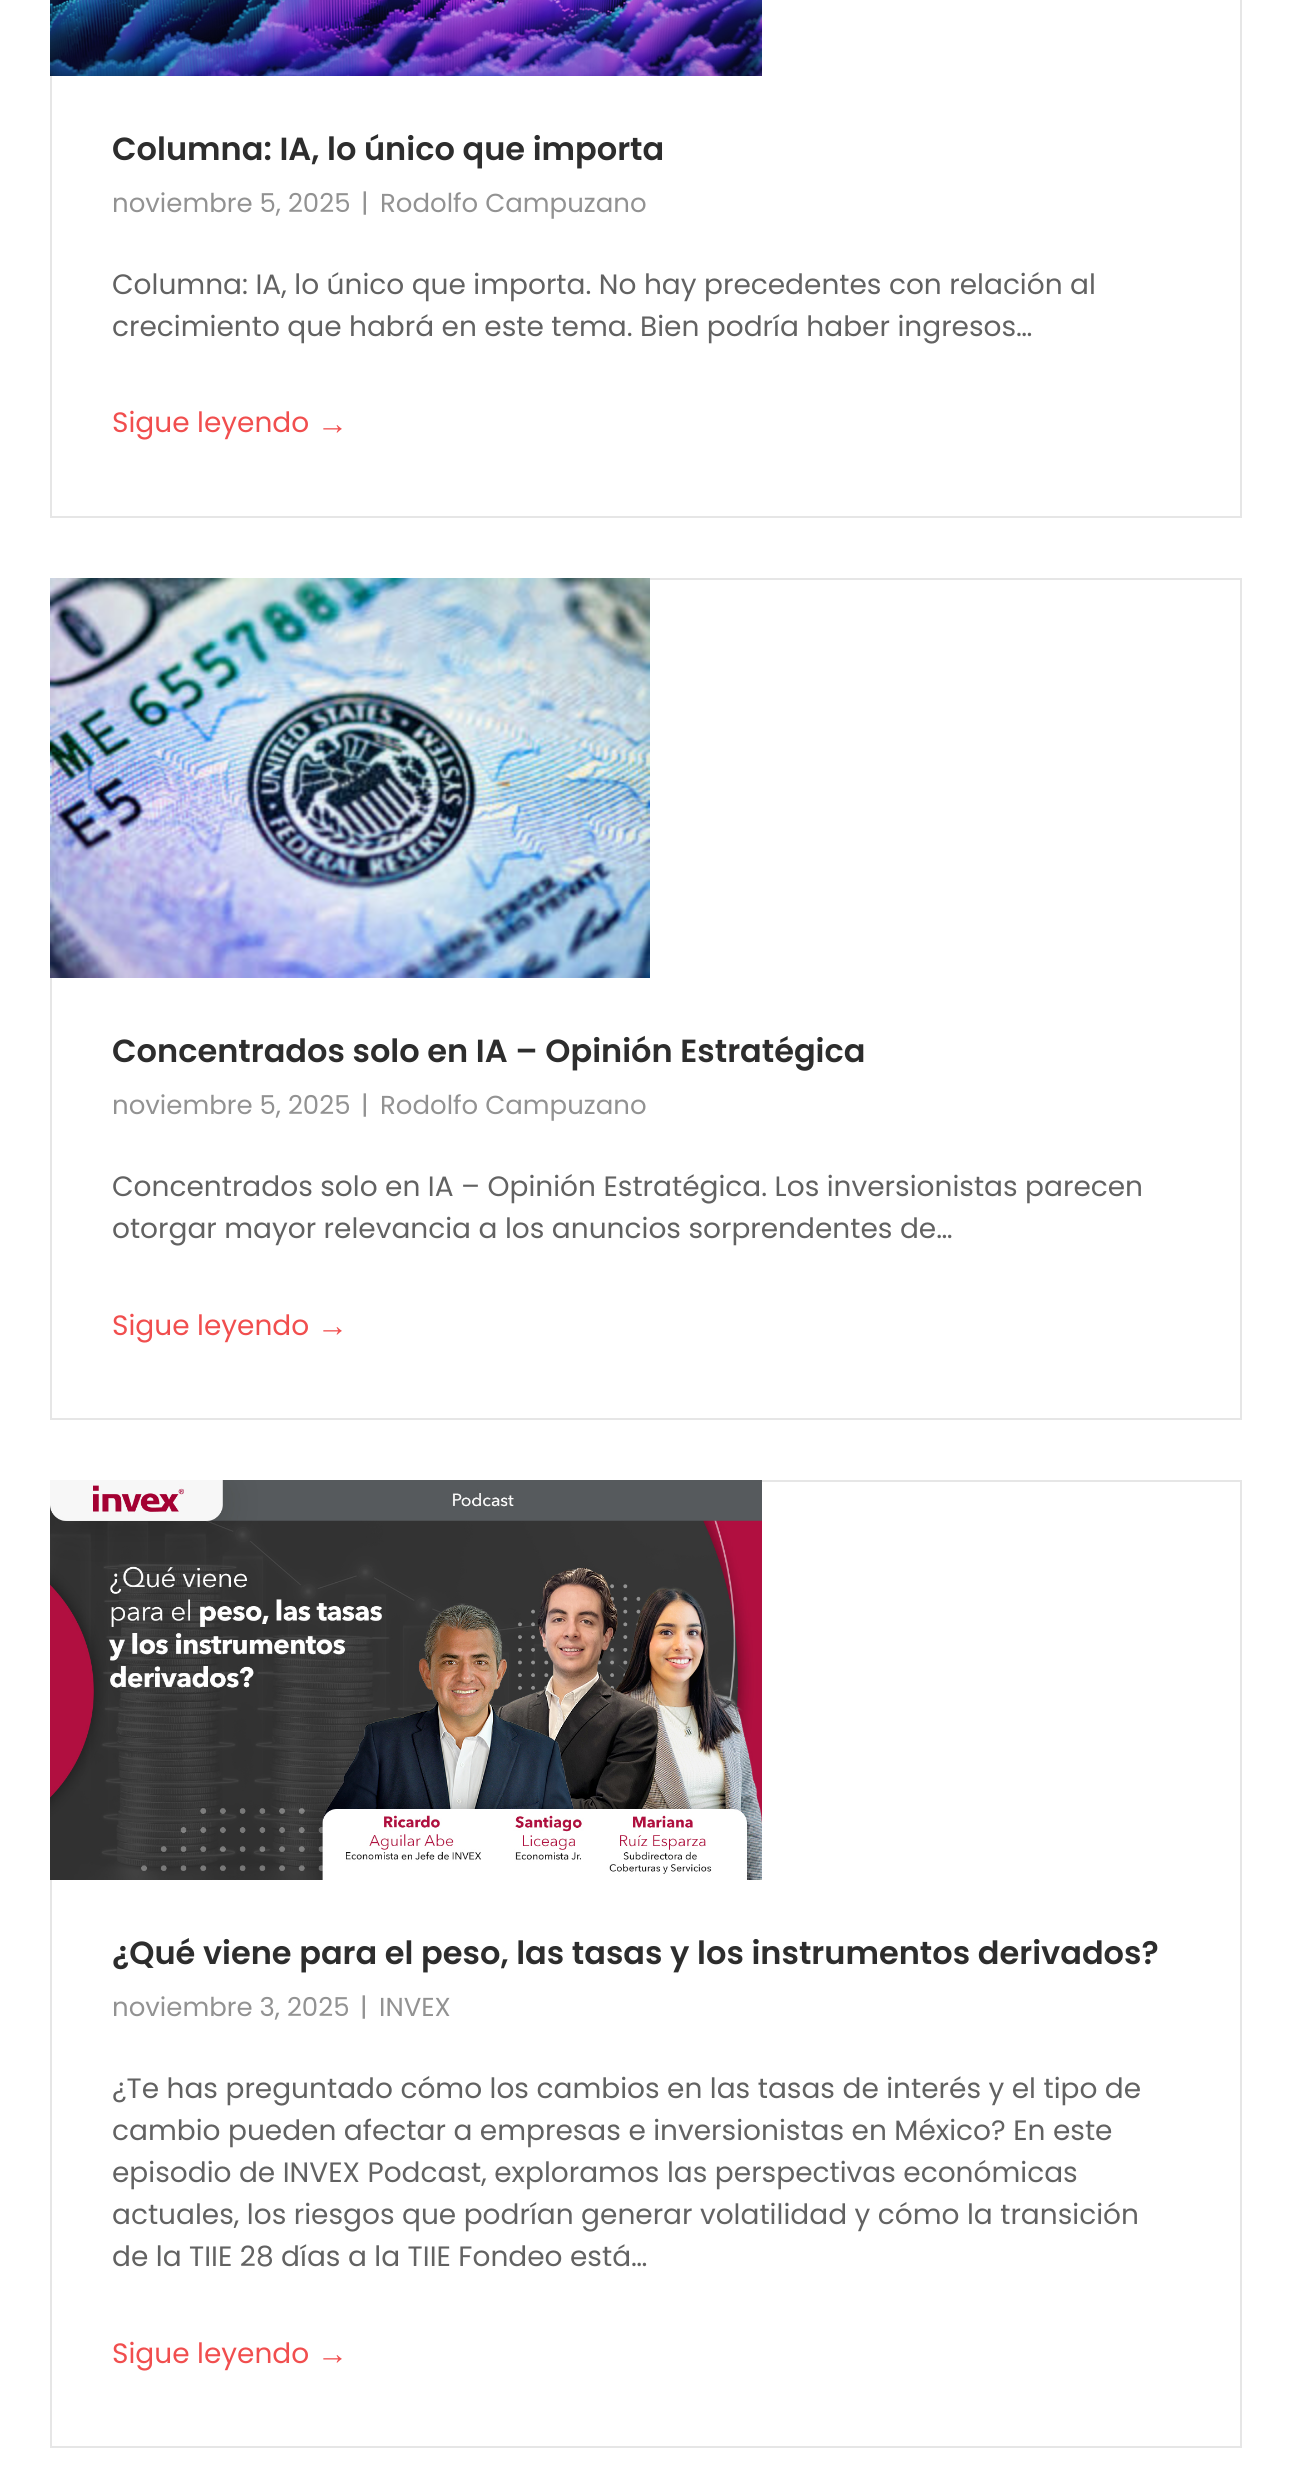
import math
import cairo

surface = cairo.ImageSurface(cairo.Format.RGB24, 1291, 2489)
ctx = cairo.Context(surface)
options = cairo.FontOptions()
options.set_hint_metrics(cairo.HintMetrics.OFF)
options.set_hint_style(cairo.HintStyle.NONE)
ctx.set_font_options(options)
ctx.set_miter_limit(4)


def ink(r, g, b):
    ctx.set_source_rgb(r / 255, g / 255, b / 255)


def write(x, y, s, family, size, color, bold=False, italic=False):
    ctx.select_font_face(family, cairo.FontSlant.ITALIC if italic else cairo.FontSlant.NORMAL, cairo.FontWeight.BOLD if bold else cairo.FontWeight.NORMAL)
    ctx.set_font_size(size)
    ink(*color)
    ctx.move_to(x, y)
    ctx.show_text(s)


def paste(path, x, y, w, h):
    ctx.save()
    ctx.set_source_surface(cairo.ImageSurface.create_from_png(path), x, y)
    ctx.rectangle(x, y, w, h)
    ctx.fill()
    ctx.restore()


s1 = dict(family="Poppins SemiBold", size=32, color=(45, 45, 45))
s2 = dict(family="Poppins", size=26, color=(146, 146, 146))
s3 = dict(family="Poppins", size=28, color=(98, 98, 98))
s4 = dict(family="Poppins", size=28, color=(241, 78, 78))
s5 = dict(family="Liberation Sans", size=31, color=(241, 78, 78))

ink(255, 255, 255)
ctx.paint()
ctx.rectangle(51, -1, 1190, 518)
ink(230, 230, 230)
ctx.stroke()
paste("pic1.png", 50, 0, 712, 76)
write(112, 160, "Columna: IA, lo único que importa", **s1)
write(112, 212, "noviembre 5, 2025", **s2)
write(361, 212, "|", **s2)
write(380, 212, "Rodolfo Campuzano", **s2)
write(112, 294, "Columna: IA, lo único que importa. No hay precedentes con relación al", **s3)
write(112, 336, "crecimiento que habrá en este tema. Bien podría haber ingresos…", **s3)
write(112, 432, "Sigue leyendo", **s4)
write(317, 434, "→", **s5)
ctx.rectangle(51, 579, 1190, 840)
ink(230, 230, 230)
ctx.stroke()
paste("pic2.png", 50, 578, 600, 400)
write(112, 1062, "Concentrados solo en IA – Opinión Estratégica", **s1)
write(112, 1114, "noviembre 5, 2025", **s2)
write(361, 1114, "|", **s2)
write(380, 1114, "Rodolfo Campuzano", **s2)
write(112, 1196, "Concentrados solo en IA – Opinión Estratégica. Los inversionistas parecen", **s3)
write(112, 1238, "otorgar mayor relevancia a los anuncios sorprendentes de…", **s3)
write(112, 1335, "Sigue leyendo", **s4)
write(317, 1336, "→", **s5)
ctx.rectangle(51, 1481, 1190, 966)
ink(230, 230, 230)
ctx.stroke()
paste("pic3.png", 50, 1480, 712, 400)
write(112, 1964, "¿Qué viene para el peso, las tasas y los instrumentos derivados?", **s1)
write(112, 2016, "noviembre 3, 2025", **s2)
write(360, 2016, "|", **s2)
write(379, 2016, "INVEX", **s2)
write(112, 2098, "¿Te has preguntado cómo los cambios en las tasas de interés y el tipo de", **s3)
write(112, 2140, "cambio pueden afectar a empresas e inversionistas en México? En este", **s3)
write(112, 2182, "episodio de INVEX Podcast, exploramos las perspectivas económicas", **s3)
write(112, 2224, "actuales, los riesgos que podrían generar volatilidad y cómo la transición", **s3)
write(112, 2266, "de la TIIE 28 días a la TIIE Fondeo está…", **s3)
write(112, 2363, "Sigue leyendo", **s4)
write(317, 2364, "→", **s5)
surface.write_to_png("screenshot.png")
